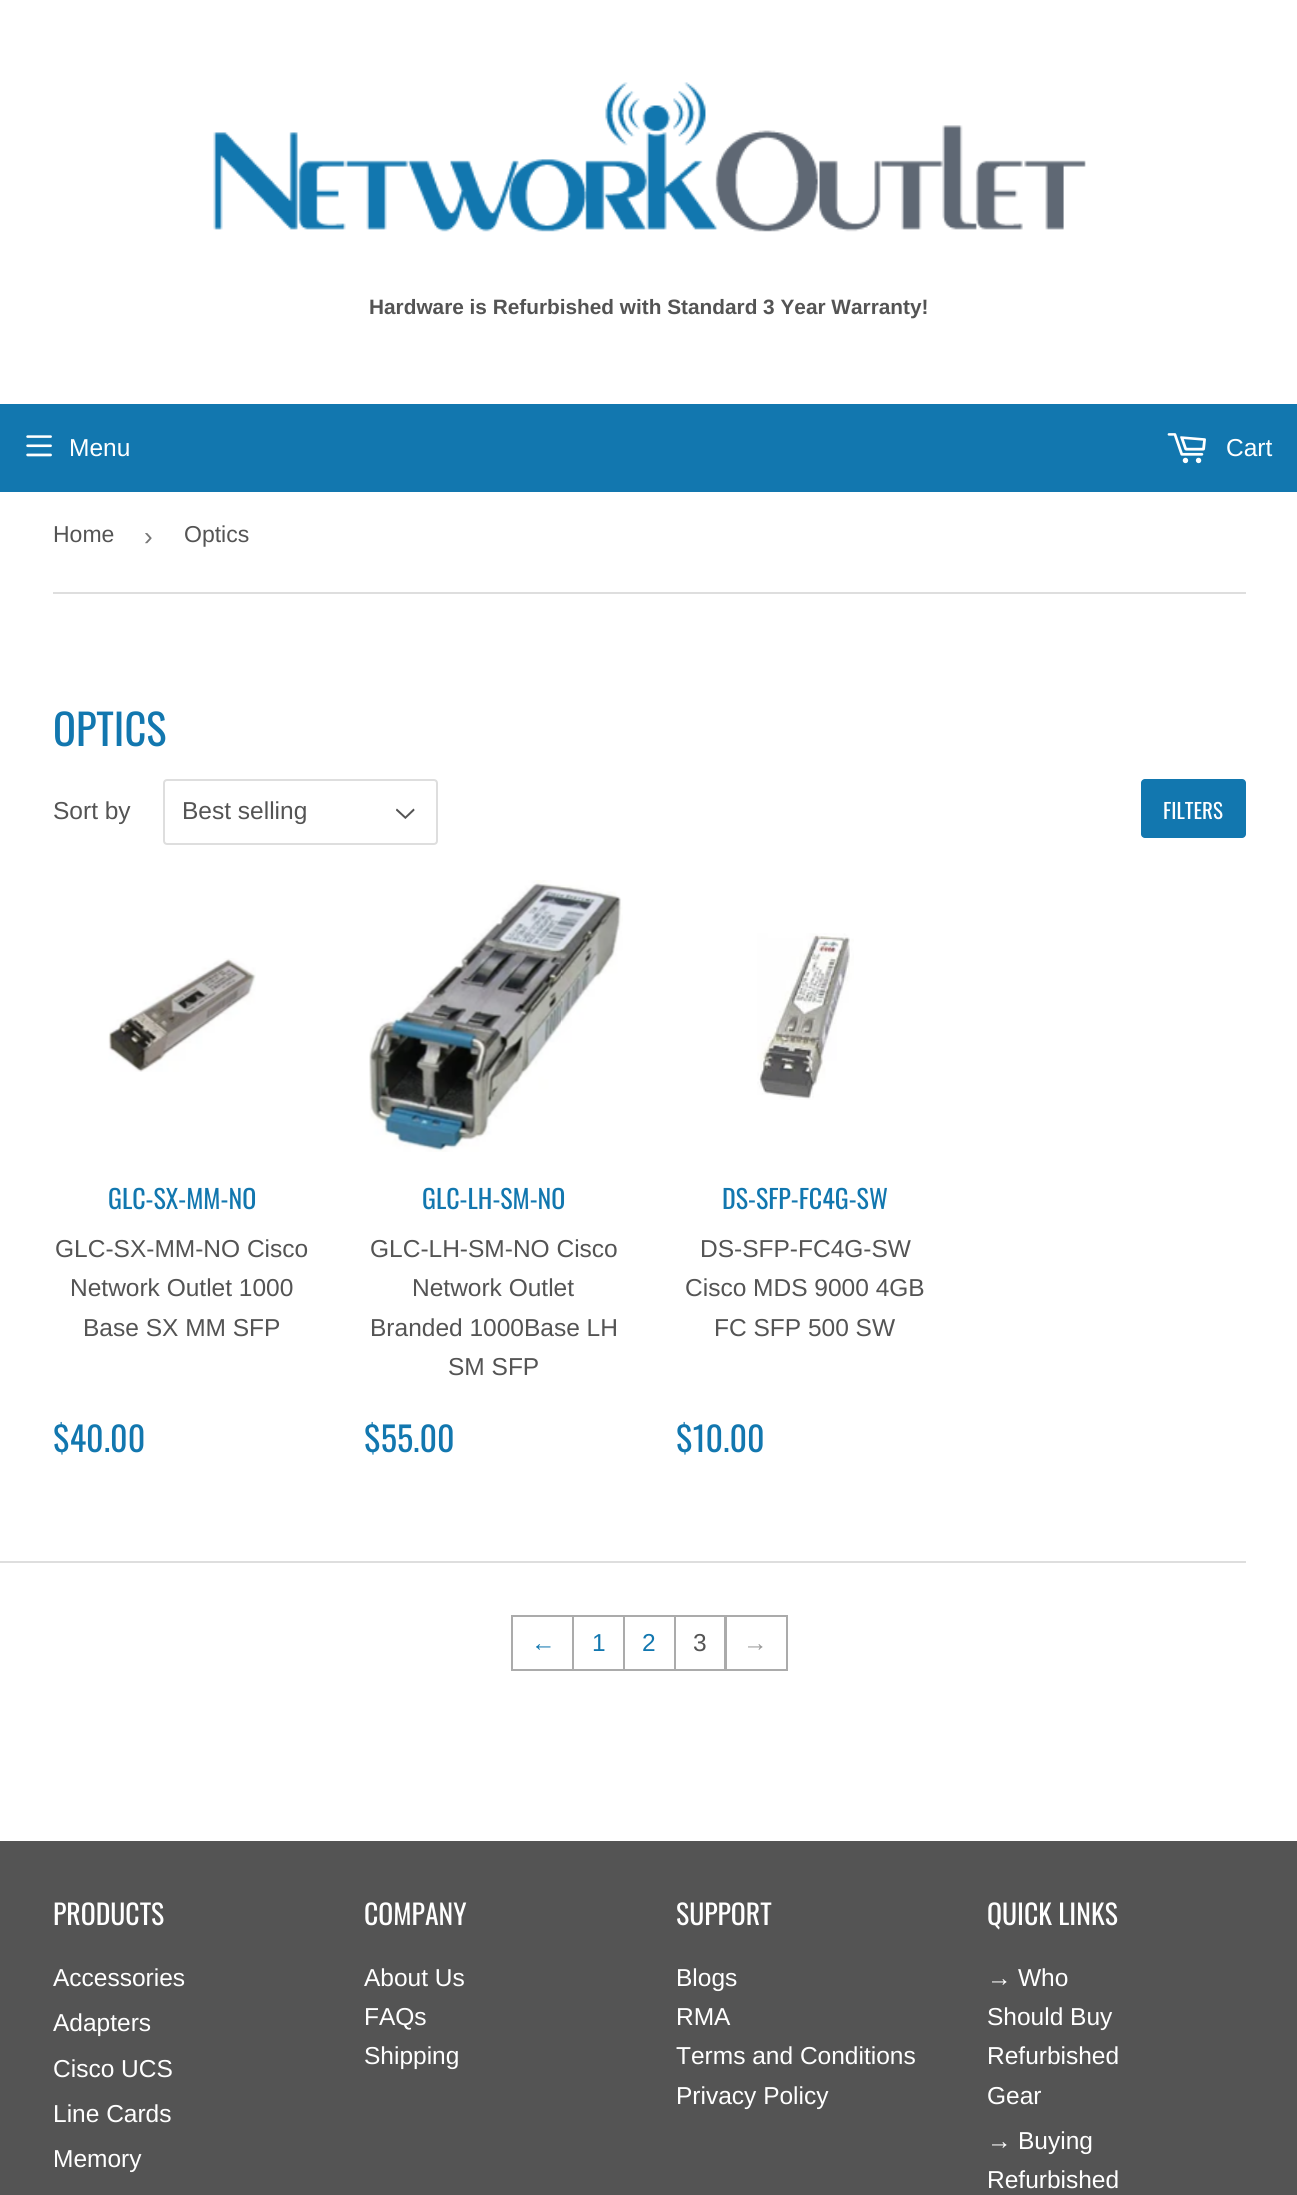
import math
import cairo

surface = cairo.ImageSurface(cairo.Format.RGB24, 1297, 2195)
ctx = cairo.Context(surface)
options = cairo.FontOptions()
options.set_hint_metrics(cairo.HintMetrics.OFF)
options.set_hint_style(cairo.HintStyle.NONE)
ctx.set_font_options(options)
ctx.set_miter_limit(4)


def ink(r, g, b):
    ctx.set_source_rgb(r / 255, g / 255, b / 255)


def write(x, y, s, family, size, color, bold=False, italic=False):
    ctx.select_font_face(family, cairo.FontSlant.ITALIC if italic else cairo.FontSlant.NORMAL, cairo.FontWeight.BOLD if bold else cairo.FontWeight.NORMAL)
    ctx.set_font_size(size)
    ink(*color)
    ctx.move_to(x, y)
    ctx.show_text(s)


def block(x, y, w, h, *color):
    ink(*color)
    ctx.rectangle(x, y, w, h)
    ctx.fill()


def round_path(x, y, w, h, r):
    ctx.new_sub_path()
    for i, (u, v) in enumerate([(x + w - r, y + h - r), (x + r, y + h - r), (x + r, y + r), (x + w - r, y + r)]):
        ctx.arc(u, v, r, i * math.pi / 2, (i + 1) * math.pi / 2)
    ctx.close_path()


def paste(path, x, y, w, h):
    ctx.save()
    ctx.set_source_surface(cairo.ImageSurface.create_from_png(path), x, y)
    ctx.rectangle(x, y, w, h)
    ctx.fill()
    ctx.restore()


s1 = dict(family="Arimo", size=20.8, color=(84, 84, 84), bold=True)
s2 = dict(family="Arimo", size=24.5, color=(255, 255, 255))
s3 = dict(family="Arimo", size=23, color=(84, 84, 84))
s4 = dict(family="Liberation Sans", size=26, color=(118, 118, 118))
s5 = dict(family="Oswald", size=42.5, color=(18, 119, 175))
s6 = dict(family="Arimo", size=24.5, color=(84, 84, 84))
s7 = dict(family="Oswald", size=21, color=(255, 255, 255))
s8 = dict(family="Oswald", size=26, color=(18, 119, 175))
s9 = dict(family="Oswald", size=34, color=(18, 119, 175))
s10 = dict(family="Liberation Sans", size=24.5, color=(18, 119, 175))
s11 = dict(family="Arimo", size=24.5, color=(18, 119, 175))
s12 = dict(family="Liberation Sans", size=24.5, color=(153, 153, 153))
s13 = dict(family="Oswald", size=27.75, color=(255, 255, 255))
s14 = dict(family="Liberation Sans", size=24.5, color=(255, 255, 255))

ink(255, 255, 255)
ctx.paint()
paste("pic1.png", 213, 82, 873, 150)
write(369, 314, "Hardware is Refurbished with Standard 3 Year Warranty!", **s1)
block(0, 404, 1297, 88, 18, 119, 175)
paste("pic2.png", 26, 435, 26, 22)
write(69, 456, "Menu", **s2)
paste("pic3.png", 1167, 433, 39, 31)
write(1226, 456, "Cart", **s2)
block(53, 592, 1193, 2, 222, 222, 222)
write(53, 542, "Home", **s3)
write(144, 545, "›", **s4)
write(184, 542, "Optics", **s3)
write(53, 746, "OPTICS", **s5)
write(53, 819, "Sort by", **s6)
paste("pic4.png", 396, 808, 19, 11)
round_path(164, 780, 273, 64, 3)
ink(222, 222, 222)
ctx.stroke()
write(182, 819, "Best selling", **s6)
ink(18, 119, 175)
round_path(1141, 779, 105, 59, 4)
ctx.fill()
write(1163, 819, "FILTERS", **s7)
paste("pic5.png", 108, 958, 148, 114)
write(108, 1209, "GLC-SX-MM-NO", **s8)
write(55, 1257, "GLC-SX-MM-NO Cisco", **s6)
write(70, 1296, "Network Outlet 1000", **s6)
write(83, 1336, "Base SX MM SFP", **s6)
write(53, 1452, "$40.00", **s9)
paste("pic6.png", 369, 880, 254, 272)
write(422, 1209, "GLC-LH-SM-NO", **s8)
write(370, 1257, "GLC-LH-SM-NO Cisco", **s6)
write(412, 1296, "Network Outlet", **s6)
write(370, 1336, "Branded 1000Base LH", **s6)
write(448, 1375, "SM SFP", **s6)
write(364, 1452, "$55.00", **s9)
paste("pic7.png", 757, 933, 97, 167)
write(722, 1209, "DS-SFP-FC4G-SW", **s8)
write(700, 1257, "DS-SFP-FC4G-SW", **s6)
write(685, 1296, "Cisco MDS 9000 4GB", **s6)
write(714, 1336, "FC SFP 500 SW", **s6)
write(676, 1452, "$10.00", **s9)
block(0, 1561, 1246, 2, 222, 222, 222)
ctx.rectangle(512, 1616, 61, 54)
ink(171, 171, 171)
ctx.stroke()
write(531, 1651, "←", **s10)
ctx.rectangle(573, 1616, 51, 54)
ink(171, 171, 171)
ctx.stroke()
write(592, 1651, "1", **s11)
ctx.rectangle(624, 1616, 51, 54)
ink(171, 171, 171)
ctx.stroke()
write(642, 1651, "2", **s11)
ctx.rectangle(726, 1616, 61, 54)
ink(171, 171, 171)
ctx.stroke()
ctx.rectangle(675, 1616, 50, 54)
ctx.stroke()
write(693, 1651, "3", **s6)
write(743, 1651, "→", **s12)
block(0, 1841, 1297, 354, 84, 84, 84)
write(53, 1925, "PRODUCTS", **s13)
write(53, 1986, "Accessories", **s2)
write(53, 2031, "Adapters", **s2)
write(53, 2077, "Cisco UCS", **s2)
write(53, 2122, "Line Cards", **s2)
write(53, 2167, "Memory", **s2)
write(364, 1925, "COMPANY", **s13)
write(364, 1986, "About Us", **s2)
write(364, 2025, "FAQs", **s2)
write(364, 2064, "Shipping", **s2)
write(676, 1925, "SUPPORT", **s13)
write(676, 1986, "Blogs", **s2)
write(676, 2025, "RMA", **s2)
write(676, 2064, "Terms and Conditions", **s2)
write(676, 2104, "Privacy Policy", **s2)
write(987, 1925, "QUICK LINKS", **s13)
write(987, 1986, "→", **s14)
write(1018, 1986, "Who", **s2)
write(987, 2025, "Should Buy", **s2)
write(987, 2064, "Refurbished", **s2)
write(987, 2104, "Gear", **s2)
write(987, 2149, "→", **s14)
write(1018, 2149, "Buying", **s2)
write(987, 2188, "Refurbished", **s2)
surface.write_to_png("screenshot.png")
